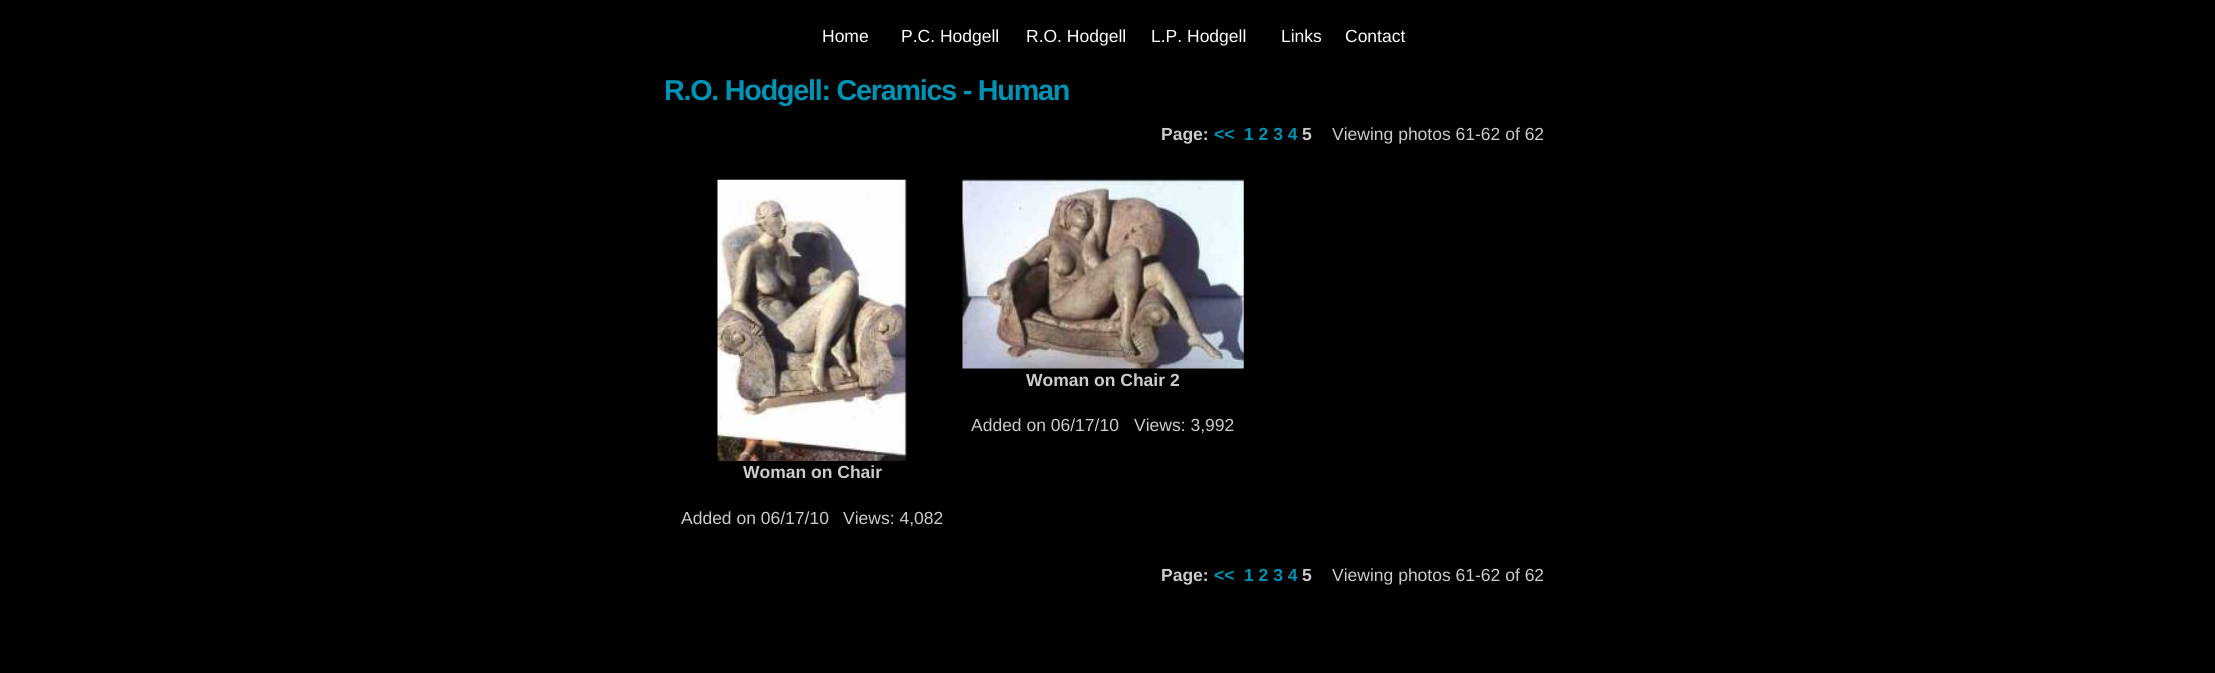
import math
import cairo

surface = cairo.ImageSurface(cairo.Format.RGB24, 2215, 673)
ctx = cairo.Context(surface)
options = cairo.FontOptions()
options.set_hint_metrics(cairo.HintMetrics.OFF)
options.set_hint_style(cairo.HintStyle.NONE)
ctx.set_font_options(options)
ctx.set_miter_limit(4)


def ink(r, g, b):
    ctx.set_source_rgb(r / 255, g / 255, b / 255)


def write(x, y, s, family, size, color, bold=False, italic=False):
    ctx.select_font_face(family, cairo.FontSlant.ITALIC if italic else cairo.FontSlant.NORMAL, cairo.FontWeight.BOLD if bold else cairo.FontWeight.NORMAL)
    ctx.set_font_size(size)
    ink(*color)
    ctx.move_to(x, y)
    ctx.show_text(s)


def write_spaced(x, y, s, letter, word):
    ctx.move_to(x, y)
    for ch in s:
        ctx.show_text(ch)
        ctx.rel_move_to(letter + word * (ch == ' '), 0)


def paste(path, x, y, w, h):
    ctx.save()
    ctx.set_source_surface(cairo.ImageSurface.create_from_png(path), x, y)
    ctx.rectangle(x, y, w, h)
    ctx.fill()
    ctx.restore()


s1 = dict(family="Liberation Sans", size=17.5, color=(255, 255, 255))
s2 = dict(family="Liberation Sans", size=17.5, color=(204, 204, 204), bold=True)
s3 = dict(family="Liberation Sans", size=17.5, color=(0, 147, 180), bold=True)
s4 = dict(family="Liberation Sans", size=17.5, color=(204, 204, 204))

ink(0, 0, 0)
ctx.paint()
write(822, 42, "Home", **s1)
write(901, 42, "P.C. Hodgell", **s1)
write(1026, 42, "R.O. Hodgell", **s1)
write(1151, 42, "L.P. Hodgell", **s1)
write(1281, 42, "Links", **s1)
write(1345, 42, "Contact", **s1)
ctx.select_font_face("Liberation Sans", cairo.FontSlant.NORMAL, cairo.FontWeight.BOLD)
ctx.set_font_size(28.75)
ink(0, 147, 180)
write_spaced(664, 100, "R.O. Hodgell: Ceramics - Human", -1.25, 0)
write(1161, 140, "Page:", **s2)
write(1214, 140, "<<", **s3)
write(1244, 140, "1 2 3 4", **s3)
write(1302, 140, "5", **s2)
write(1332, 140, "Viewing photos 61-62 of 62", **s4)
paste("pic1.png", 962, 179, 282, 190)
write(1026, 386, "Woman on Chair 2", **s2)
write(971, 431, "Added on 06/17/10", **s4)
write(1134, 431, "Views: 3,992", **s4)
paste("pic2.png", 717, 179, 190, 282)
write(743, 478, "Woman on Chair", **s2)
write(681, 524, "Added on 06/17/10", **s4)
write(843, 524, "Views: 4,082", **s4)
write(1161, 581, "Page:", **s2)
write(1214, 581, "<<", **s3)
write(1244, 581, "1 2 3 4", **s3)
write(1302, 581, "5", **s2)
write(1332, 581, "Viewing photos 61-62 of 62", **s4)
surface.write_to_png("screenshot.png")
